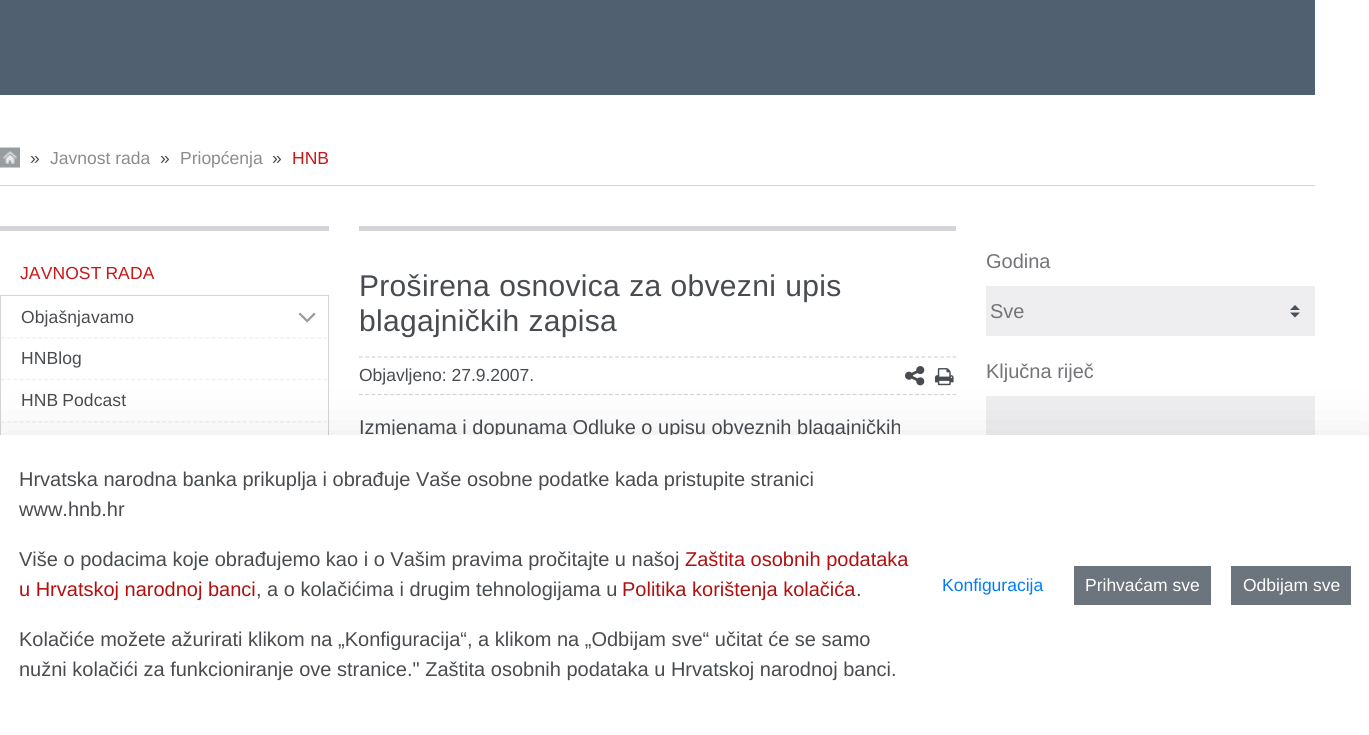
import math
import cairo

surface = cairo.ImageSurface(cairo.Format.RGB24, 1369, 735)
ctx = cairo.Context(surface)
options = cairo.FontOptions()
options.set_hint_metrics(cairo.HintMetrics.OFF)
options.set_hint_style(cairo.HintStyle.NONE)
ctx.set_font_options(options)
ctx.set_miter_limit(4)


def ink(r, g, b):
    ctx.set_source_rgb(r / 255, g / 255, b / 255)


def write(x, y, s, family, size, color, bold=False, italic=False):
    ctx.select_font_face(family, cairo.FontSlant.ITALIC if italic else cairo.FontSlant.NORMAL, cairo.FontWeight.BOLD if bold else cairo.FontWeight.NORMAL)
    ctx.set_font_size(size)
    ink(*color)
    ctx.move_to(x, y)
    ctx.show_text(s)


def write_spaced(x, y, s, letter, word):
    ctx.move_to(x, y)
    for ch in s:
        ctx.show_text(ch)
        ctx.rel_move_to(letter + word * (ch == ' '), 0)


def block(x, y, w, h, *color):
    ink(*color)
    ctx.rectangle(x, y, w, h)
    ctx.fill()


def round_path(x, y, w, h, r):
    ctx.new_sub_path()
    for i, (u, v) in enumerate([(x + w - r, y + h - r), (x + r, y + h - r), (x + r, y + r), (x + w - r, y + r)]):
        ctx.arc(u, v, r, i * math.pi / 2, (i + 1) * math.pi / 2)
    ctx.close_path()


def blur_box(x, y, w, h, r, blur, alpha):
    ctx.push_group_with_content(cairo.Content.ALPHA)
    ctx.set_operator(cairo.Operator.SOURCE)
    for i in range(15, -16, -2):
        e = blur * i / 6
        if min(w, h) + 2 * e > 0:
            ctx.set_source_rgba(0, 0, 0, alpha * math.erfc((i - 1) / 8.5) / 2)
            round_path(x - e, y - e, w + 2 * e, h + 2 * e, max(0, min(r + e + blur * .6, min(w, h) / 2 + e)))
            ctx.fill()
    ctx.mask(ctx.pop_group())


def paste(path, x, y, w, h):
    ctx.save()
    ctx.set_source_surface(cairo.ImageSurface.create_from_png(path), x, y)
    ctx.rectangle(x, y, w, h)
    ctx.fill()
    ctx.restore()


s1 = dict(family="Liberation Sans", size=17.5, color=(72, 76, 80))
s2 = dict(family="Liberation Sans", size=17.5, color=(138, 140, 144))
s3 = dict(family="Liberation Sans", size=17.5, color=(200, 24, 24))
s4 = dict(family="Liberation Sans", size=20, color=(72, 76, 80))
s5 = dict(family="Liberation Sans", size=20, color=(116, 116, 120))
s6 = dict(family="Liberation Sans", size=20, color=(176, 16, 16))
s7 = dict(family="Liberation Sans", size=17.5, color=(0, 123, 255))
s8 = dict(family="Liberation Sans", size=17.5, color=(255, 255, 255))

ink(255, 255, 255)
ctx.paint()
block(0, 0, 1315, 95, 80, 96, 112)
block(0, 185, 1315, 1, 212, 212, 216)
paste("pic1.png", 0, 147, 20, 21)
write(30, 164, "»", **s1)
write(50, 164, "Javnost rada", **s2)
write(160, 164, "»", **s1)
write(180, 164, "Priopćenja", **s2)
write(272, 164, "»", **s1)
write(292, 164, "HNB", **s3)
block(0, 226, 329, 5, 212, 212, 216)
ink(200, 24, 24)
write_spaced(20, 279, "JAVNOST RADA", 0.1, -1)
ctx.rectangle(0.5, 295.5, 328, 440)
ink(212, 212, 216)
ctx.set_line_width(1)
ctx.stroke()
ctx.new_path()
ctx.move_to(1, 338)
ctx.line_to(327.5, 338)
ink(238, 238, 240)
ctx.set_line_width(1.2)
ctx.set_dash([3.75, 2.45])
ctx.stroke()
ink(72, 76, 80)
write_spaced(21, 323, "Objašnjavamo", 0.1, 0)
paste("pic2.png", 298, 312, 18, 11)
ctx.new_path()
ctx.move_to(1, 379.5)
ctx.line_to(327.5, 379.5)
ink(238, 238, 240)
ctx.stroke()
ink(72, 76, 80)
write_spaced(21, 364, "HNBlog", 0.1, 0)
ctx.new_path()
ctx.move_to(1, 422)
ctx.line_to(327.5, 422)
ink(238, 238, 240)
ctx.stroke()
ink(72, 76, 80)
write_spaced(21, 406, "HNB Podcast", 0.1, -1)
block(359, 226, 597, 5, 212, 212, 216)
ctx.set_font_size(30)
ink(72, 76, 80)
write_spaced(359, 296, "Proširena osnovica za obvezni upis", 0.3, 0.5)
write_spaced(359, 331, "blagajničkih zapisa", 0.3, 0.5)
ctx.new_path()
ctx.move_to(359, 357)
ctx.line_to(956, 357)
ink(212, 212, 216)
ctx.set_dash([3.75, 2.5])
ctx.stroke()
ctx.new_path()
ctx.move_to(359, 394.5)
ctx.line_to(956, 394.5)
ctx.stroke()
write(359, 381, "Objavljeno: 27.9.2007.", **s1)
paste("pic3.png", 905, 366, 20, 20)
paste("pic4.png", 935, 368, 19, 18)
write(359, 434, "Izmjenama i dopunama Odluke o upisu obveznih blagajničkih", **s4)
write(986, 268, "Godina", **s5)
block(986, 286, 329, 50, 238, 238, 240)
paste("pic5.png", 1290, 305, 10, 13)
write(990, 318, "Sve", **s5)
write(986, 378, "Ključna riječ", **s5)
block(986, 396, 329, 39, 238, 238, 240)
ink(0, 0, 0)
blur_box(0, 455, 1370, 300, 0, 30, 0.18)
block(0, 435, 1369, 300, 255, 255, 255)
write(19, 486, "Hrvatska narodna banka prikuplja i obrađuje Vaše osobne podatke kada pristupite stranici", **s4)
write(19, 516, "www.hnb.hr", **s4)
write(19, 566, "Više o podacima koje obrađujemo kao i o Vašim pravima pročitajte u našoj", **s4)
write(685, 566, "Zaštita osobnih podataka", **s6)
write(19, 596, "u Hrvatskoj narodnoj banci", **s6)
write(256, 596, ", a o kolačićima i drugim tehnologijama u", **s4)
write(622, 596, "Politika korištenja kolačića", **s6)
write(856, 596, ".", **s4)
write(19, 646, "Kolačiće možete ažurirati klikom na „Konfiguracija“, a klikom na „Odbijam sve“ učitat će se samo", **s4)
write(19, 676, "nužni kolačići za funkcioniranje ove stranice.\" Zaštita osobnih podataka u Hrvatskoj narodnoj banci.", **s4)
write(942, 591, "Konfiguracija", **s7)
block(1074, 566, 137, 39, 108, 117, 125)
write(1085, 591, "Prihvaćam sve", **s8)
block(1231, 566, 120, 39, 108, 117, 125)
write(1243, 591, "Odbijam sve", **s8)
surface.write_to_png("screenshot.png")
